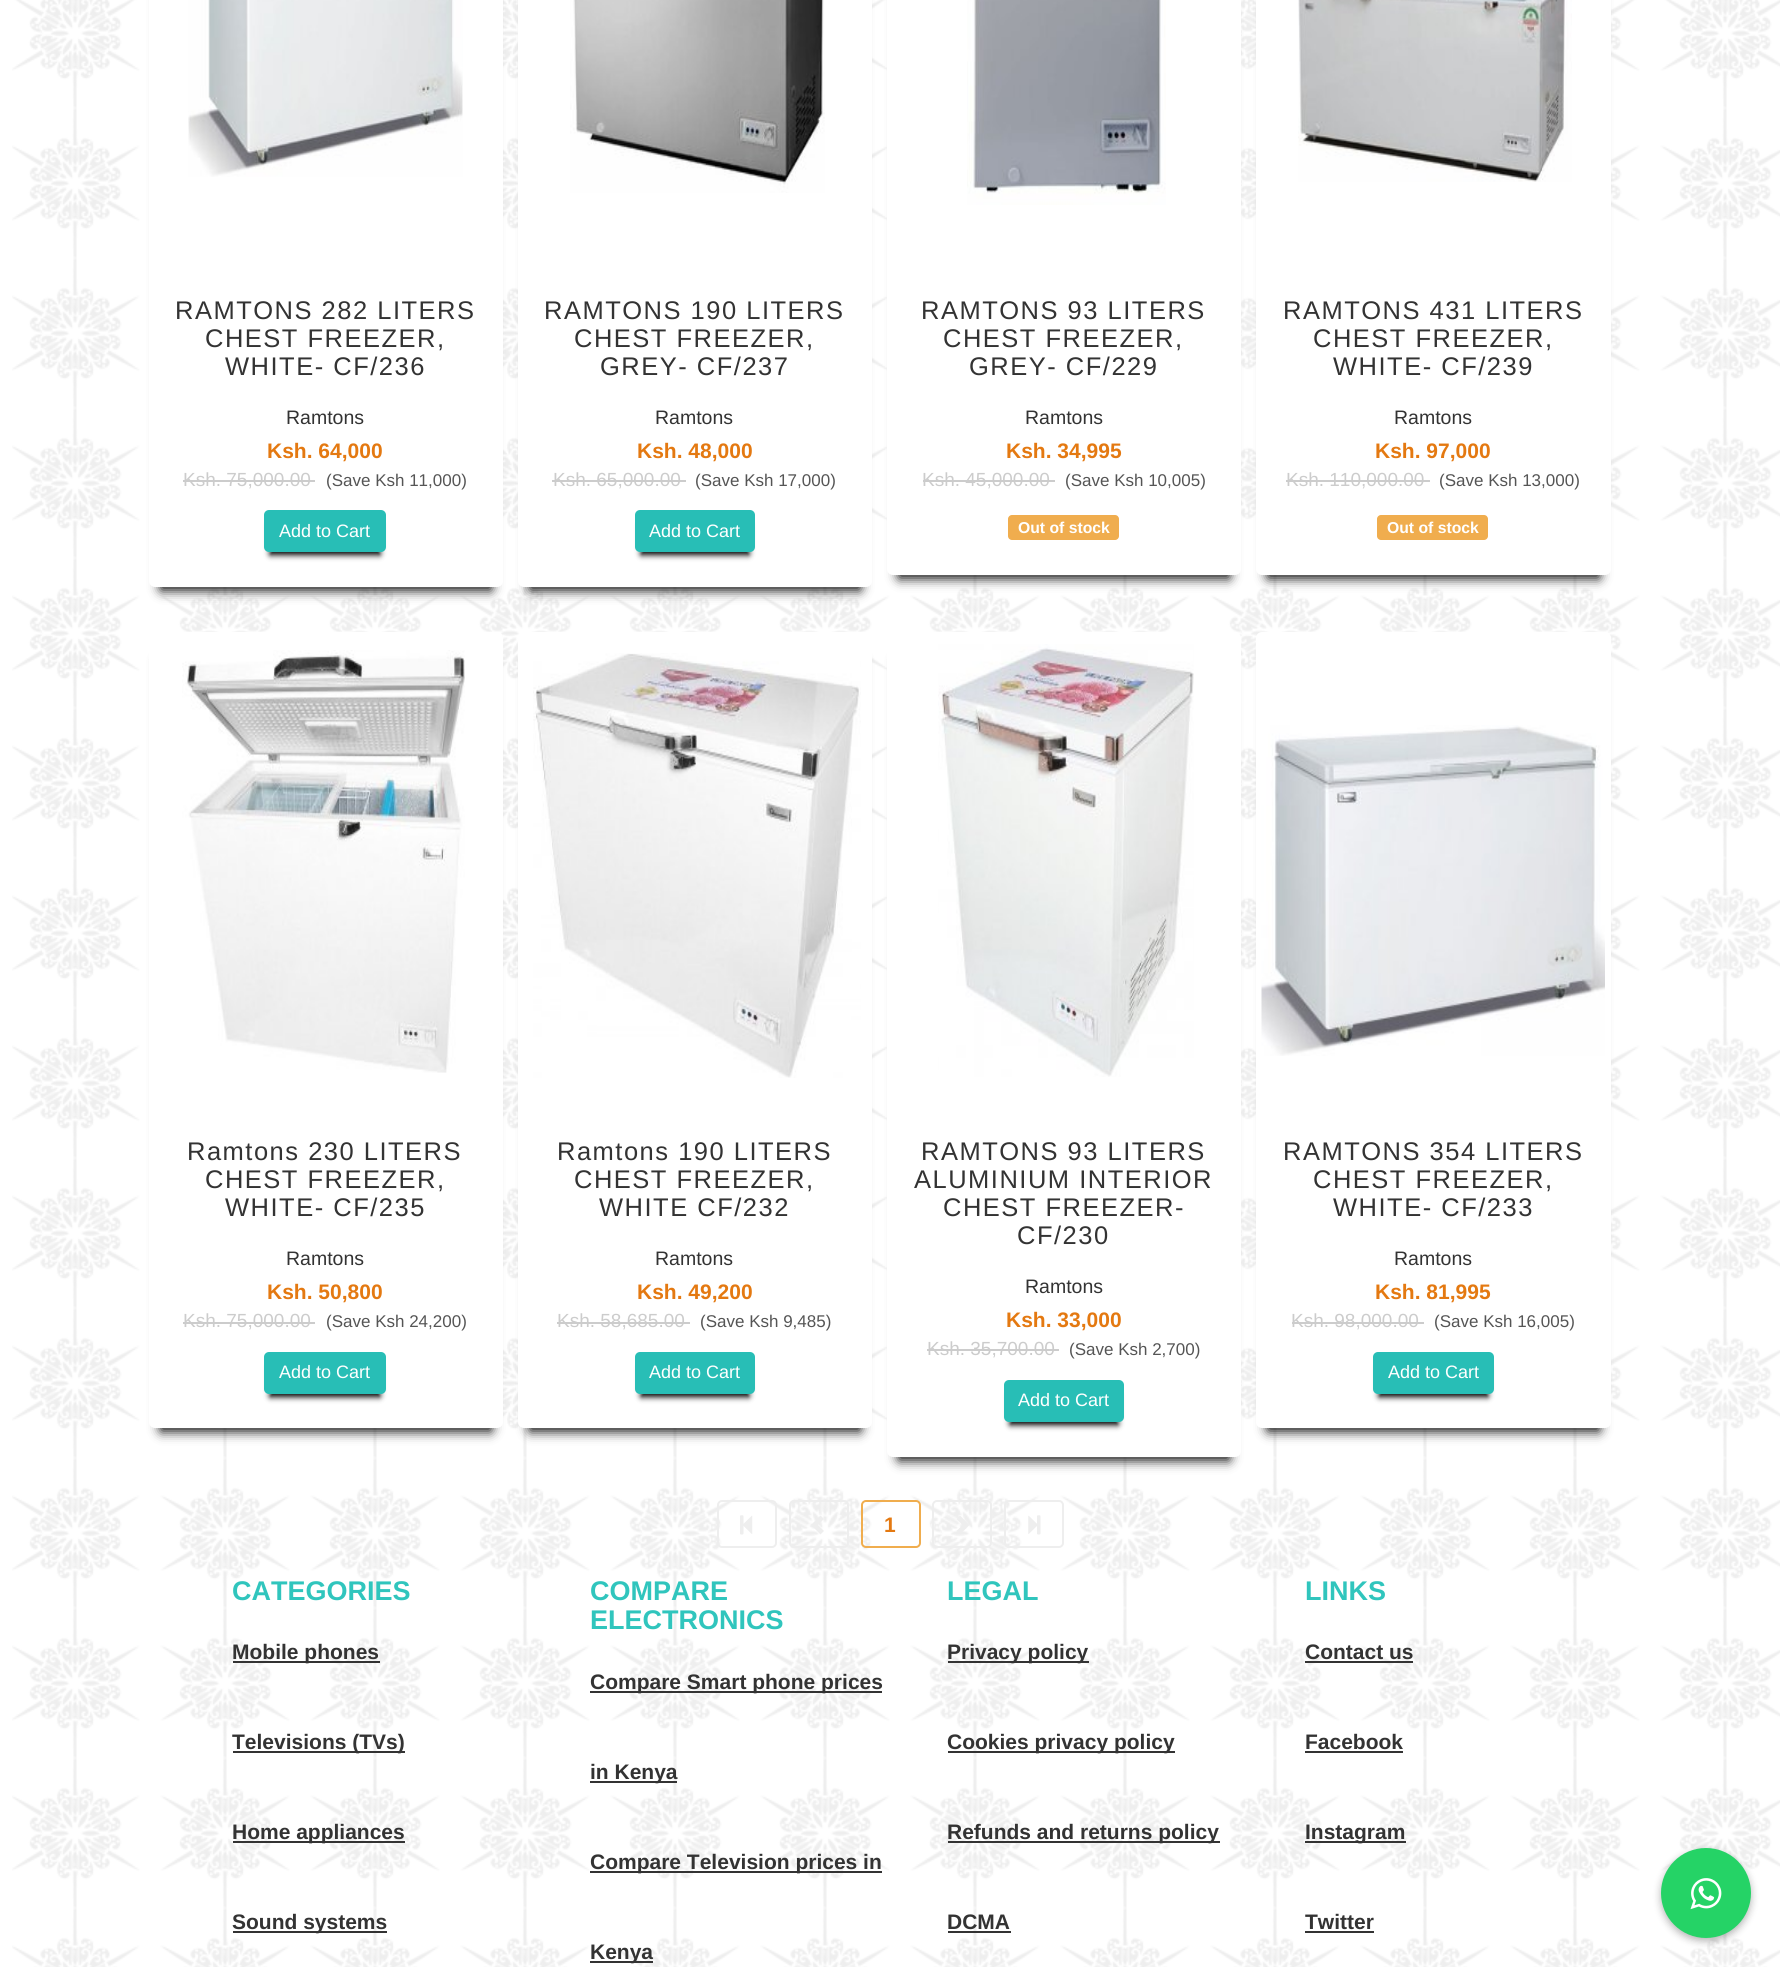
import math
import cairo

surface = cairo.ImageSurface(cairo.Format.RGB24, 1780, 1967)
ctx = cairo.Context(surface)
options = cairo.FontOptions()
options.set_hint_metrics(cairo.HintMetrics.OFF)
options.set_hint_style(cairo.HintStyle.NONE)
ctx.set_font_options(options)
ctx.set_miter_limit(4)


def ink(r, g, b):
    ctx.set_source_rgb(r / 255, g / 255, b / 255)


def write(x, y, s, family, size, color, bold=False, italic=False):
    ctx.select_font_face(family, cairo.FontSlant.ITALIC if italic else cairo.FontSlant.NORMAL, cairo.FontWeight.BOLD if bold else cairo.FontWeight.NORMAL)
    ctx.set_font_size(size)
    ink(*color)
    ctx.move_to(x, y)
    ctx.show_text(s)


def write_spaced(x, y, s, letter, word):
    ctx.move_to(x, y)
    for ch in s:
        ctx.show_text(ch)
        ctx.rel_move_to(letter + word * (ch == ' '), 0)


def block(x, y, w, h, *color):
    ink(*color)
    ctx.rectangle(x, y, w, h)
    ctx.fill()


def round_path(x, y, w, h, r):
    ctx.new_sub_path()
    for i, (u, v) in enumerate([(x + w - r, y + h - r), (x + r, y + h - r), (x + r, y + r), (x + w - r, y + r)]):
        ctx.arc(u, v, r, i * math.pi / 2, (i + 1) * math.pi / 2)
    ctx.close_path()


def blur_box(x, y, w, h, r, blur, alpha):
    ctx.push_group_with_content(cairo.Content.ALPHA)
    ctx.set_operator(cairo.Operator.SOURCE)
    for i in range(15, -16, -2):
        e = blur * i / 6
        if min(w, h) + 2 * e > 0:
            ctx.set_source_rgba(0, 0, 0, alpha * math.erfc((i - 1) / 8.5) / 2)
            round_path(x - e, y - e, w + 2 * e, h + 2 * e, max(0, min(r + e + blur * .6, min(w, h) / 2 + e)))
            ctx.fill()
    ctx.mask(ctx.pop_group())


def paste(path, x, y, w, h):
    ctx.save()
    ctx.set_source_surface(cairo.ImageSurface.create_from_png(path), x, y)
    ctx.rectangle(x, y, w, h)
    ctx.fill()
    ctx.restore()


s1 = dict(family="Liberation Sans", size=19.5, color=(51, 51, 51))
s2 = dict(family="Liberation Sans", size=21, color=(228, 121, 17), bold=True)
s3 = dict(family="Liberation Sans", size=19, color=(204, 204, 204))
s4 = dict(family="Liberation Sans", size=17, color=(85, 85, 85))
s5 = dict(family="Liberation Sans", size=18, color=(255, 255, 255))
s6 = dict(family="Liberation Sans", size=15.75, color=(255, 255, 255), bold=True)
s7 = dict(family="Liberation Sans", size=27, color=(48, 197, 189), bold=True)
s8 = dict(family="Liberation Sans", size=21, color=(51, 51, 51), bold=True)

ink(255, 255, 255)
ctx.paint()
paste("pic1.png", 12, 0, 1768, 1967)
ink(0, 0, 0)
blur_box(161, -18, 330, 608, 0, 6, 1)
ink(255, 255, 255)
round_path(149, -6, 354, 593, 6)
ctx.fill()
paste("pic2.png", 188, 0, 275, 177)
ctx.select_font_face("Liberation Sans")
ctx.set_font_size(25.5)
ink(51, 51, 51)
write_spaced(175, 319, "RAMTONS 282 LITERS", 1.5, 0)
write_spaced(205, 347, "CHEST FREEZER,", 1.5, 0)
write_spaced(225, 375, "WHITE- CF/236", 1.5, 0)
write(286, 424, "Ramtons", **s1)
write(267, 458, "Ksh. 64,000", **s2)
write(183, 486, "Ksh. 75,000.00", **s3)
block(183, 480, 132, 2, 204, 204, 204)
write(326, 486, "(Save Ksh 11,000)", **s4)
ink(0, 0, 0)
blur_box(270, 525, 110, 30, 0, 3, 1)
ink(40, 190, 182)
round_path(264, 510, 122, 42, 5)
ctx.fill()
write(279, 537, "Add to Cart", **s5)
ink(0, 0, 0)
blur_box(530, -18, 330, 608, 0, 6, 1)
ink(255, 255, 255)
round_path(518, -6, 354, 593, 6)
ctx.fill()
paste("pic3.png", 570, 0, 255, 193)
ctx.set_font_size(25.5)
ink(51, 51, 51)
write_spaced(544, 319, "RAMTONS 190 LITERS", 1.5, 0)
write_spaced(574, 347, "CHEST FREEZER,", 1.5, 0)
write_spaced(600, 375, "GREY- CF/237", 1.5, 0)
write(655, 424, "Ramtons", **s1)
write(637, 458, "Ksh. 48,000", **s2)
write(553, 486, "Ksh. 65,000.00", **s3)
block(552, 480, 134, 2, 204, 204, 204)
write(695, 486, "(Save Ksh 17,000)", **s4)
ink(0, 0, 0)
blur_box(641, 525, 108, 30, 0, 3, 1)
ink(40, 190, 182)
round_path(635, 510, 120, 42, 5)
ctx.fill()
write(649, 537, "Add to Cart", **s5)
ink(0, 0, 0)
blur_box(899, -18, 330, 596, 0, 6, 1)
ink(255, 255, 255)
round_path(887, -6, 354, 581, 6)
ctx.fill()
paste("pic4.png", 967, 0, 199, 205)
ctx.set_font_size(25.5)
ink(51, 51, 51)
write_spaced(921, 319, "RAMTONS 93 LITERS", 1.5, 0)
write_spaced(943, 347, "CHEST FREEZER,", 1.5, 0)
write_spaced(969, 375, "GREY- CF/229", 1.5, 0)
write(1025, 424, "Ramtons", **s1)
write(1006, 458, "Ksh. 34,995", **s2)
write(922, 486, "Ksh. 45,000.00", **s3)
block(923, 480, 132, 2, 204, 204, 204)
write(1065, 486, "(Save Ksh 10,005)", **s4)
ink(240, 173, 78)
round_path(1008, 515, 111, 25, 4)
ctx.fill()
write(1018, 533, "Out of stock", **s6)
ink(0, 0, 0)
blur_box(1268, -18, 331, 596, 0, 6, 1)
ink(255, 255, 255)
round_path(1256, -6, 355, 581, 6)
ctx.fill()
paste("pic5.png", 1298, 0, 274, 182)
ctx.select_font_face("Liberation Sans")
ctx.set_font_size(25.5)
ink(51, 51, 51)
write_spaced(1283, 319, "RAMTONS 431 LITERS", 1.5, 0)
write_spaced(1313, 347, "CHEST FREEZER,", 1.5, 0)
write_spaced(1333, 375, "WHITE- CF/239", 1.5, 0)
write(1394, 424, "Ramtons", **s1)
write(1375, 458, "Ksh. 97,000", **s2)
write(1286, 486, "Ksh. 110,000.00", **s3)
block(1286, 480, 144, 2, 204, 204, 204)
write(1439, 486, "(Save Ksh 13,000)", **s4)
ink(240, 173, 78)
round_path(1377, 515, 111, 25, 4)
ctx.fill()
write(1387, 533, "Out of stock", **s6)
ink(0, 0, 0)
blur_box(161, 659, 330, 772, 0, 6, 1)
ink(255, 255, 255)
round_path(149, 632, 354, 796, 6)
ctx.fill()
paste("pic6.png", 182, 650, 283, 423)
ctx.select_font_face("Liberation Sans")
ctx.set_font_size(25.5)
ink(51, 51, 51)
write_spaced(187, 1160, "Ramtons 230 LITERS", 1.5, 0)
write_spaced(205, 1188, "CHEST FREEZER,", 1.5, 0)
write_spaced(225, 1216, "WHITE- CF/235", 1.5, 0)
write(286, 1265, "Ramtons", **s1)
write(267, 1299, "Ksh. 50,800", **s2)
write(183, 1327, "Ksh. 75,000.00", **s3)
block(183, 1322, 132, 2, 204, 204, 204)
write(326, 1327, "(Save Ksh 24,200)", **s4)
ink(0, 0, 0)
blur_box(270, 1367, 110, 30, 0, 3, 1)
ink(40, 190, 182)
round_path(264, 1352, 122, 42, 5)
ctx.fill()
write(279, 1378, "Add to Cart", **s5)
ink(0, 0, 0)
blur_box(530, 659, 330, 772, 0, 6, 1)
ink(255, 255, 255)
round_path(518, 632, 354, 796, 6)
ctx.fill()
paste("pic7.png", 533, 653, 328, 425)
ctx.set_font_size(25.5)
ink(51, 51, 51)
write_spaced(557, 1160, "Ramtons 190 LITERS", 1.5, 0)
write_spaced(574, 1188, "CHEST FREEZER,", 1.5, 0)
write_spaced(599, 1216, "WHITE CF/232", 1.5, 0)
write(655, 1265, "Ramtons", **s1)
write(637, 1299, "Ksh. 49,200", **s2)
write(557, 1327, "Ksh. 58,685.00", **s3)
block(557, 1322, 133, 2, 204, 204, 204)
write(700, 1327, "(Save Ksh 9,485)", **s4)
ink(0, 0, 0)
blur_box(641, 1367, 108, 30, 0, 3, 1)
ink(40, 190, 182)
round_path(635, 1352, 120, 42, 5)
ctx.fill()
write(649, 1378, "Add to Cart", **s5)
ink(0, 0, 0)
blur_box(899, 659, 330, 801, 0, 6, 1)
ink(255, 255, 255)
round_path(887, 632, 354, 825, 6)
ctx.fill()
paste("pic8.png", 938, 644, 256, 433)
ctx.set_font_size(25.5)
ink(51, 51, 51)
write_spaced(921, 1160, "RAMTONS 93 LITERS", 1.5, 0)
write_spaced(914, 1188, "ALUMINIUM INTERIOR", 1.5, 0)
write_spaced(943, 1216, "CHEST FREEZER-", 1.5, 0)
write_spaced(1017, 1244, "CF/230", 1.5, 0)
write(1025, 1293, "Ramtons", **s1)
write(1006, 1327, "Ksh. 33,000", **s2)
write(927, 1355, "Ksh. 35,700.00", **s3)
block(927, 1349, 132, 2, 204, 204, 204)
write(1069, 1355, "(Save Ksh 2,700)", **s4)
ink(0, 0, 0)
blur_box(1010, 1395, 108, 30, 0, 3, 1)
ink(40, 190, 182)
round_path(1004, 1380, 120, 42, 5)
ctx.fill()
write(1018, 1406, "Add to Cart", **s5)
ink(0, 0, 0)
blur_box(1268, 659, 331, 772, 0, 6, 1)
ink(255, 255, 255)
round_path(1256, 632, 355, 796, 6)
ctx.fill()
paste("pic9.png", 1261, 725, 344, 331)
ctx.set_font_size(25.5)
ink(51, 51, 51)
write_spaced(1283, 1160, "RAMTONS 354 LITERS", 1.5, 0)
write_spaced(1313, 1188, "CHEST FREEZER,", 1.5, 0)
write_spaced(1333, 1216, "WHITE- CF/233", 1.5, 0)
write(1394, 1265, "Ramtons", **s1)
write(1375, 1299, "Ksh. 81,995", **s2)
write(1291, 1327, "Ksh. 98,000.00", **s3)
block(1292, 1322, 132, 2, 204, 204, 204)
write(1434, 1327, "(Save Ksh 16,005)", **s4)
ink(0, 0, 0)
blur_box(1379, 1367, 109, 30, 0, 3, 1)
ink(40, 190, 182)
round_path(1373, 1352, 121, 42, 5)
ctx.fill()
write(1388, 1378, "Add to Cart", **s5)
round_path(718, 1501, 58, 46, 4)
ink(238, 238, 238)
ctx.stroke()
paste("pic10.png", 740, 1515, 13, 20)
round_path(790, 1501, 58, 46, 4)
ctx.stroke()
ctx.new_path()
ctx.move_to(824, 1519)
ctx.line_to(818, 1525)
ctx.line_to(824, 1531)
ctx.line_to(820.5, 1534.5)
ctx.line_to(811, 1525)
ctx.line_to(820.5, 1515.5)
ctx.close_path()
ctx.fill()
round_path(862, 1501, 58, 46, 4)
ink(240, 173, 78)
ctx.stroke()
write(884, 1532, "1", **s2)
round_path(933, 1501, 58, 46, 4)
ink(238, 238, 238)
ctx.stroke()
ctx.new_path()
ctx.move_to(969.5, 1525)
ctx.line_to(960, 1534.5)
ctx.line_to(956.5, 1531)
ctx.line_to(962.5, 1525)
ctx.line_to(956.5, 1519)
ctx.line_to(960, 1515.5)
ctx.close_path()
ctx.fill()
round_path(1005, 1501, 58, 46, 4)
ctx.stroke()
paste("pic11.png", 1028, 1515, 13, 20)
write(232, 1600, "CATEGORIES", **s7)
block(233, 1661, 147, 2, 51, 51, 51)
write(232, 1659, "Mobile phones", **s8)
block(233, 1751, 172, 2, 51, 51, 51)
write(232, 1749, "Televisions (TVs)", **s8)
block(233, 1841, 172, 2, 51, 51, 51)
write(232, 1839, "Home appliances", **s8)
block(233, 1931, 154, 2, 51, 51, 51)
write(232, 1929, "Sound systems", **s8)
write(590, 1600, "COMPARE", **s7)
write(590, 1629, "ELECTRONICS", **s7)
block(590, 1691, 292, 2, 51, 51, 51)
write(590, 1689, "Compare Smart phone prices", **s8)
block(590, 1781, 87, 2, 51, 51, 51)
write(590, 1779, "in Kenya", **s8)
block(590, 1871, 292, 2, 51, 51, 51)
write(590, 1869, "Compare Television prices in", **s8)
block(590, 1961, 63, 2, 51, 51, 51)
write(590, 1959, "Kenya", **s8)
write(947, 1600, "LEGAL", **s7)
block(948, 1661, 141, 2, 51, 51, 51)
write(947, 1659, "Privacy policy", **s8)
block(948, 1751, 227, 2, 51, 51, 51)
write(947, 1749, "Cookies privacy policy", **s8)
block(948, 1841, 272, 2, 51, 51, 51)
write(947, 1839, "Refunds and returns policy", **s8)
write(947, 1929, "DCMA", **s8)
block(948, 1931, 63, 2, 51, 51, 51)
write(1305, 1600, "LINKS", **s7)
write(1305, 1659, "Contact us", **s8)
block(1305, 1661, 108, 2, 51, 51, 51)
write(1305, 1749, "Facebook", **s8)
block(1305, 1751, 98, 2, 51, 51, 51)
block(1305, 1841, 101, 2, 51, 51, 51)
write(1305, 1839, "Instagram", **s8)
write(1305, 1929, "Twitter", **s8)
block(1305, 1931, 69, 2, 51, 51, 51)
ink(0, 0, 0)
blur_box(1661, 1851, 90, 90, 45, 4, 0.3)
ink(37, 211, 102)
ctx.arc(1706, 1893, 45, 0, 2 * math.pi)
ctx.fill()
paste("pic12.png", 1690, 1878, 32, 32)
surface.write_to_png("screenshot.png")
